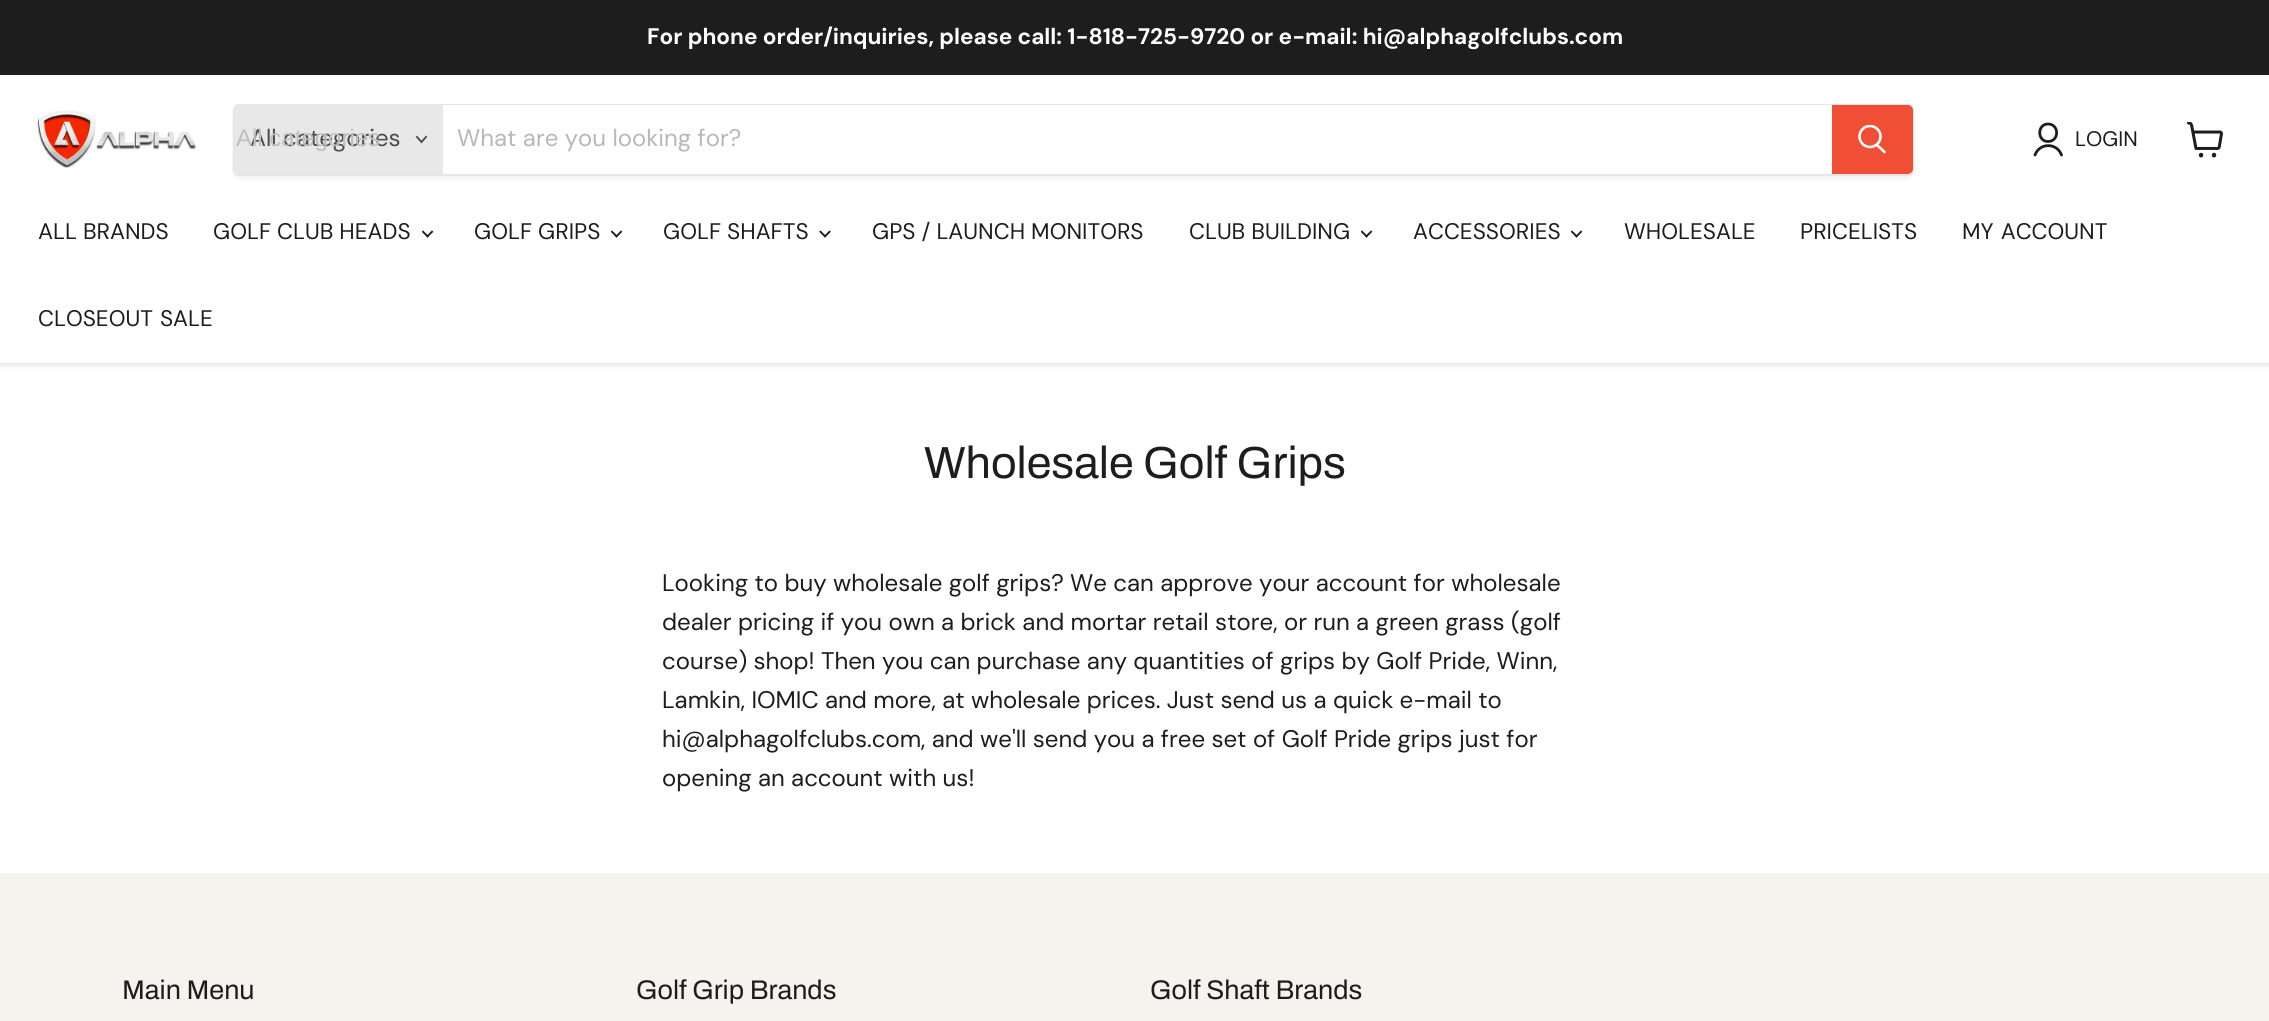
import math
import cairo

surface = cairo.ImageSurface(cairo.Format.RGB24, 2269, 1021)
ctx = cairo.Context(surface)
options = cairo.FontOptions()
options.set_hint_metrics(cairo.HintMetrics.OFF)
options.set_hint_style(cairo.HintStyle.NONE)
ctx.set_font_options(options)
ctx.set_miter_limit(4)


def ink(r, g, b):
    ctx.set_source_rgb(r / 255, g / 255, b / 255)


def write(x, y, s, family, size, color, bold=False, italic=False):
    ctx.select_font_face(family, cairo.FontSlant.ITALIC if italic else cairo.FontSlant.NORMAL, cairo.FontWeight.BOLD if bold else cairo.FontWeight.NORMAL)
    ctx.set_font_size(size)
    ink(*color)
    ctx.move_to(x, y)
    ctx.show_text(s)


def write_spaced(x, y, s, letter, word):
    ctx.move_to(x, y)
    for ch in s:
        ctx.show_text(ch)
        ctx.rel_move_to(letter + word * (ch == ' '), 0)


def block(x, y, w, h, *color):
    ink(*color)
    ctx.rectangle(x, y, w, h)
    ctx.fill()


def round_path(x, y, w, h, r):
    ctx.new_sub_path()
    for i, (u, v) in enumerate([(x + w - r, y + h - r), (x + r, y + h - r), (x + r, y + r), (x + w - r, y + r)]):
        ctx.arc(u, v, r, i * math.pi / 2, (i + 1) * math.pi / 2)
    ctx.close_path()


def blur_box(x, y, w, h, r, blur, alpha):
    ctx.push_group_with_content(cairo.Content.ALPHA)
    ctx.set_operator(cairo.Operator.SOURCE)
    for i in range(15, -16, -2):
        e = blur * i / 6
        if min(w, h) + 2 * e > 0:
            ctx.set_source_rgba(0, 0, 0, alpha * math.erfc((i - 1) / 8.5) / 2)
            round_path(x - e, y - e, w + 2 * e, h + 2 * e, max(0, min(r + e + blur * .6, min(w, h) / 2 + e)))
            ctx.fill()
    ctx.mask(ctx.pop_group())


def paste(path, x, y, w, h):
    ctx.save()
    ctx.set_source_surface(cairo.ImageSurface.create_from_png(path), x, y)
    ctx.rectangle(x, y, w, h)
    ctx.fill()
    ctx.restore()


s1 = dict(family="DM Sans", size=22.5, color=(255, 255, 255), bold=True)
s2 = dict(family="DM Sans", size=24, color=(77, 77, 77))
s3 = dict(family="Liberation Sans", size=24, color=(191, 191, 191))
s4 = dict(family="DM Sans", size=24, color=(184, 184, 184))
s5 = dict(family="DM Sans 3", size=21, color=(29, 29, 29))
s6 = dict(family="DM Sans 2", size=22.5, color=(29, 29, 29))
s7 = dict(family="Archivo", size=45, color=(29, 29, 29))
s8 = dict(family="DM Sans", size=24, color=(29, 29, 29))
s9 = dict(family="Archivo", size=27, color=(29, 29, 29))

ink(255, 255, 255)
ctx.paint()
ctx.save()
ctx.rectangle(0, 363, 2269, 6)
ctx.clip()
ink(128, 128, 128)
blur_box(0, 77, 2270, 288, 0, 3, 0.25)
ctx.restore()
block(0, 0, 2269, 75, 29, 29, 29)
write(647, 44, "For phone order/inquiries, please call: 1-818-725-9720 or e-mail: hi@alphagolfclubs.com", **s1)
paste("pic1.png", 37, 110, 159, 58)
ctx.save()
ctx.set_fill_rule(cairo.FillRule.EVEN_ODD)
ctx.new_path()
ctx.move_to(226, 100)
ctx.line_to(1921, 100)
ctx.line_to(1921, 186)
ctx.line_to(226, 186)
ctx.close_path()
ctx.move_to(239, 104)
ctx.line_to(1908, 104)
ctx.curve_to(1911.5, 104, 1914, 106.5, 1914, 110)
ctx.line_to(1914, 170)
ctx.curve_to(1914, 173.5, 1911.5, 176, 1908, 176)
ctx.line_to(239, 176)
ctx.curve_to(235.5, 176, 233, 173.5, 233, 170)
ctx.line_to(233, 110)
ctx.curve_to(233, 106.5, 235.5, 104, 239, 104)
ctx.close_path()
ctx.clip()
ink(128, 128, 128)
blur_box(233, 107, 1681, 72, 6, 2, 0.11)
ctx.restore()
round_path(234, 105, 1679, 70, 5)
ctx.set_source_rgba(0.502, 0.502, 0.502, 0.2)
ctx.stroke()
ink(232, 232, 232)
ctx.new_path()
ctx.move_to(239, 105)
ctx.line_to(443, 105)
ctx.line_to(443, 174)
ctx.line_to(239, 174)
ctx.curve_to(236, 174, 234, 172, 234, 169)
ctx.line_to(234, 110)
ctx.curve_to(234, 107, 236, 105, 239, 105)
ctx.close_path()
ctx.fill()
write(250, 146, "All categories", **s2)
write(236, 146, "All categories", **s3)
ctx.new_path()
ctx.move_to(421.5, 142)
ctx.line_to(426, 137)
ctx.move_to(421.5, 142)
ctx.line_to(417, 137)
ink(77, 77, 77)
ctx.set_line_width(1.9)
ctx.set_line_cap(cairo.LineCap.SQUARE)
ctx.stroke()
block(443, 105, 1389, 1, 255, 255, 255)
write(457, 146, "What are you looking for?", **s4)
ink(240, 79, 54)
ctx.new_path()
ctx.move_to(1833, 106)
ctx.line_to(1908, 106)
ctx.curve_to(1910, 106, 1912, 108, 1912, 110)
ctx.line_to(1912, 169)
ctx.curve_to(1912, 171, 1910, 173, 1908, 173)
ctx.line_to(1833, 173)
ctx.close_path()
ctx.fill_preserve()
ctx.set_line_width(2)
ctx.set_line_cap(cairo.LineCap.BUTT)
ctx.stroke()
ctx.new_path()
ctx.move_to(1884.5, 152)
ctx.line_to(1877, 145)
ink(255, 255, 255)
ctx.set_line_width(2.6)
ctx.set_line_cap(cairo.LineCap.ROUND)
ctx.stroke()
ctx.save()
ctx.rectangle(1857, 125, 30, 31)
ctx.clip()
ctx.arc(1870, 136.5, 10.5, 0, 2 * math.pi)
ctx.set_line_cap(cairo.LineCap.BUTT)
ctx.stroke()
ctx.restore()
ctx.new_path()
ctx.move_to(2048, 141.5)
ctx.curve_to(2059.5, 141.5, 2059.5, 124, 2048, 124)
ctx.curve_to(2037, 124, 2037, 141.5, 2048, 141.5)
ctx.close_path()
ctx.move_to(2061.5, 155)
ctx.curve_to(2057, 142.5, 2039.5, 142.5, 2035, 155)
ink(29, 29, 29)
ctx.set_line_width(2.8)
ctx.set_line_join(cairo.LineJoin.ROUND)
ctx.stroke()
write(2075, 146, "LOGIN", **s5)
paste("pic2.png", 2187, 122, 36, 36)
write(38, 239, "ALL BRANDS", **s6)
write(213, 239, "GOLF CLUB HEADS", **s6)
paste("pic3.png", 422, 230, 12, 8)
write(474, 239, "GOLF GRIPS", **s6)
paste("pic3.png", 611, 230, 12, 8)
write(663, 239, "GOLF SHAFTS", **s6)
paste("pic4.png", 819, 230, 12, 8)
write(872, 239, "GPS / LAUNCH MONITORS", **s6)
write(1189, 239, "CLUB BUILDING", **s6)
paste("pic3.png", 1361, 230, 12, 8)
write(1413, 239, "ACCESSORIES", **s6)
paste("pic3.png", 1571, 230, 12, 8)
write(1624, 239, "WHOLESALE", **s6)
write(1800, 239, "PRICELISTS", **s6)
write_spaced(1962, 239, "MY ACCOUNT", 0, 1)
write_spaced(38, 326, "CLOSEOUT SALE", 0, 1)
write(924, 478, "Wholesale Golf Grips", **s7)
write(662, 591, "Looking to buy wholesale golf grips? We can approve your account for wholesale", **s8)
write(662, 630, "dealer pricing if you own a brick and mortar retail store, or run a green grass (golf", **s8)
write(662, 669, "course) shop! Then you can purchase any quantities of grips by Golf Pride, Winn,", **s8)
write(662, 708, "Lamkin, IOMIC and more, at wholesale prices. Just send us a quick e-mail to", **s8)
write(662, 747, "hi@alphagolfclubs.com, and we'll send you a free set of Golf Pride grips just for", **s8)
write(662, 786, "opening an account with us!", **s8)
block(0, 873, 2269, 148, 245, 243, 237)
write(122, 999, "Main Menu", **s9)
write(636, 999, "Golf Grip Brands", **s9)
write(1150, 999, "Golf Shaft Brands", **s9)
surface.write_to_png("screenshot.png")
